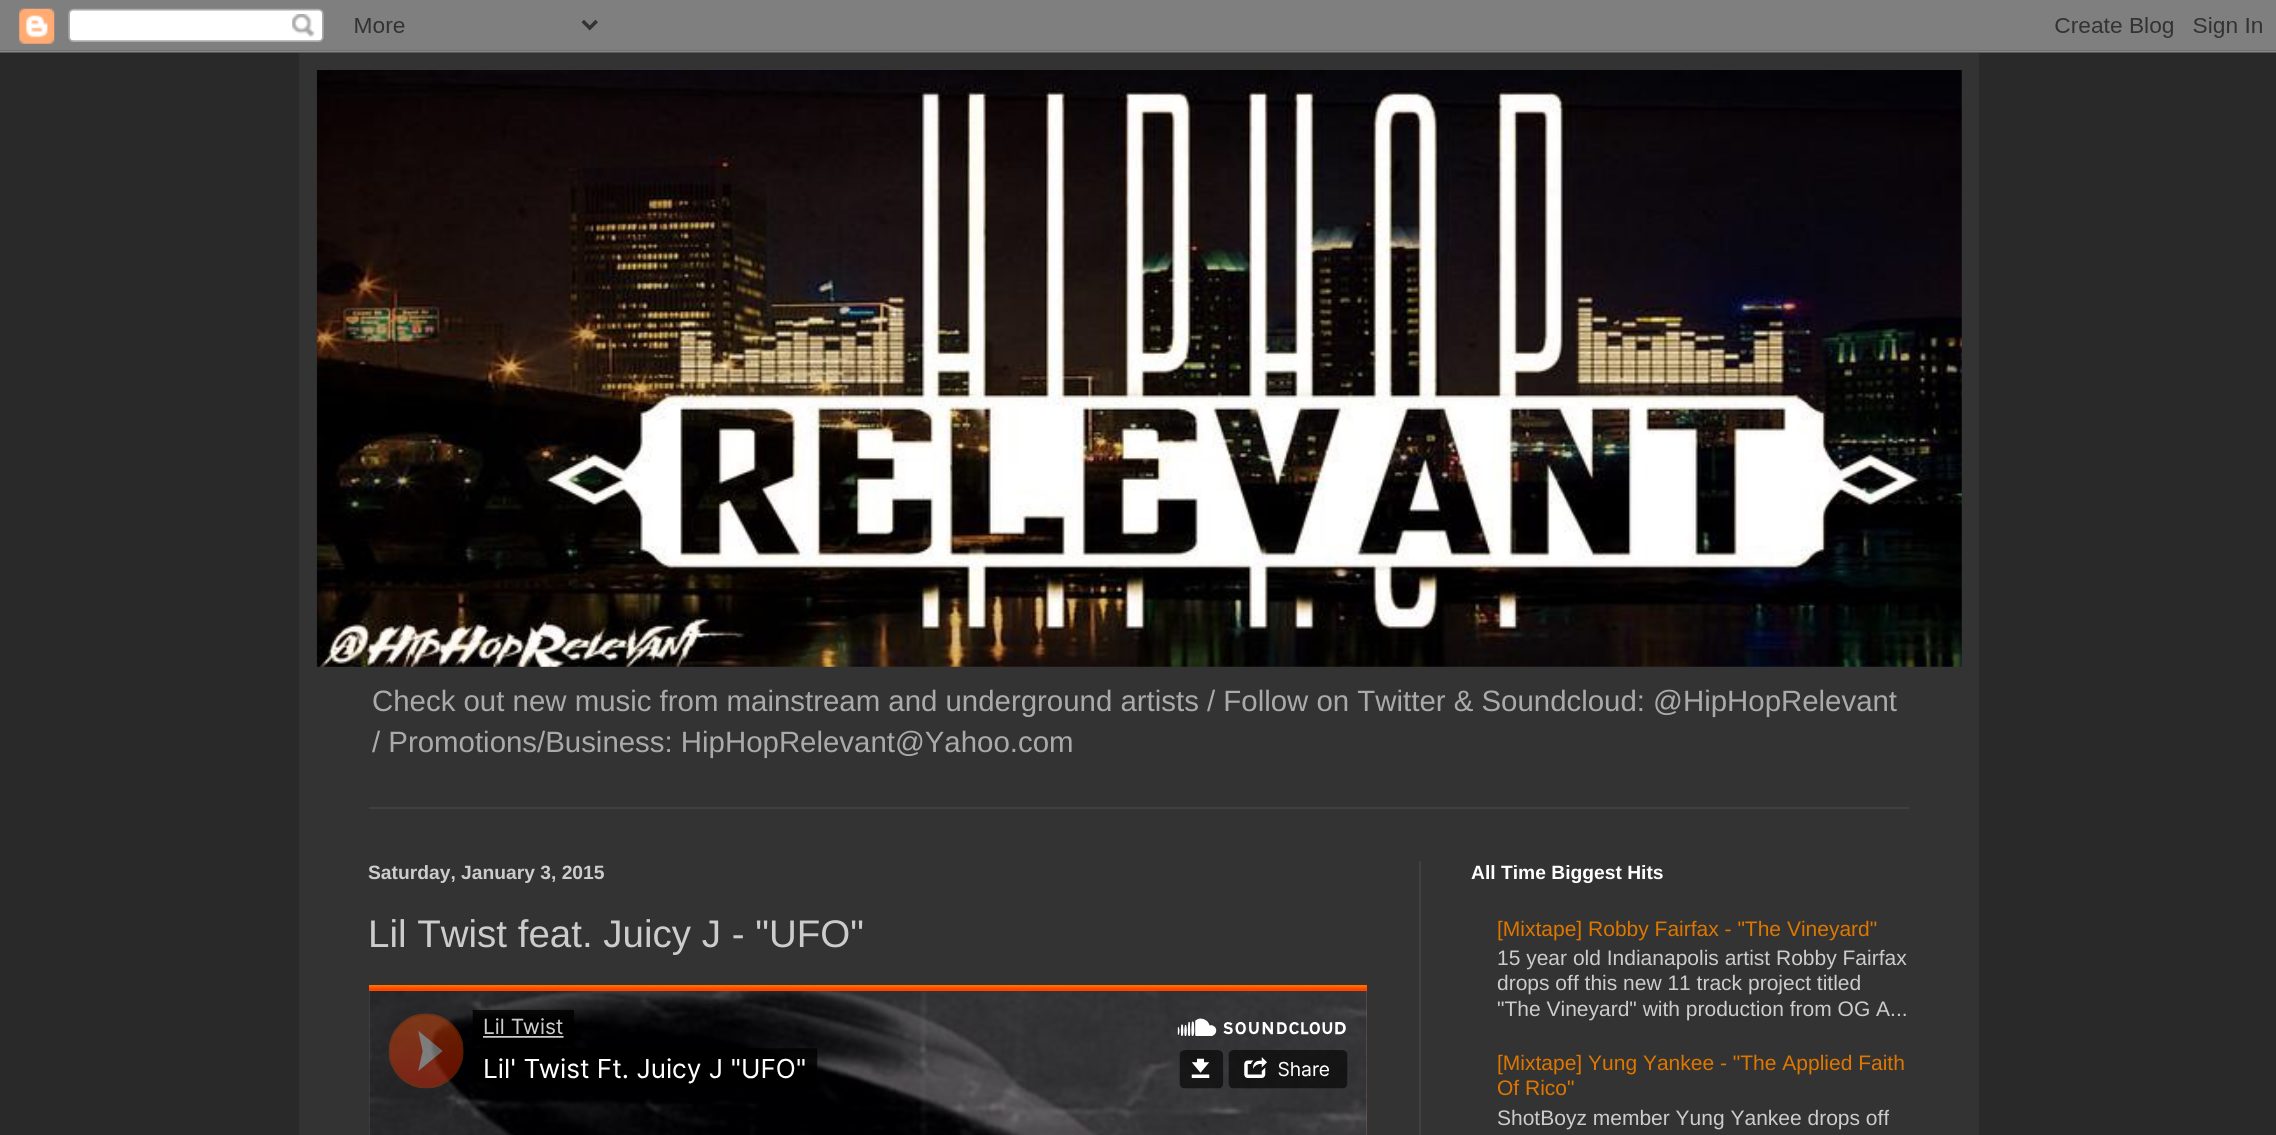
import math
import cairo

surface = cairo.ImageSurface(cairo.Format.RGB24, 2276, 1135)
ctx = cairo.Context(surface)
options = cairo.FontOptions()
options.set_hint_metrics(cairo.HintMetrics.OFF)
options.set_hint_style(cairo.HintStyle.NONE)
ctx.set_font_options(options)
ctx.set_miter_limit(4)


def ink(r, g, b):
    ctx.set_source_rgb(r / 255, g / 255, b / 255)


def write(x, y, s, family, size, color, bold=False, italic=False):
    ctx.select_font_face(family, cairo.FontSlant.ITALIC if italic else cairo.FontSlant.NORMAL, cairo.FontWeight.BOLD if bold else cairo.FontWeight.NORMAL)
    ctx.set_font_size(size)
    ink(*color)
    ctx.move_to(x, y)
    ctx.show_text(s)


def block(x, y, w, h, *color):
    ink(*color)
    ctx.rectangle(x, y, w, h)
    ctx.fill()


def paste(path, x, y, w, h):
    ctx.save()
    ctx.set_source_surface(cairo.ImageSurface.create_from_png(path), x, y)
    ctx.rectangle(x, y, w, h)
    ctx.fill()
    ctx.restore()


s1 = dict(family="Liberation Sans", size=29.4, color=(170, 170, 170))
s2 = dict(family="Liberation Sans", size=19.25, color=(204, 204, 204), bold=True)
s3 = dict(family="Liberation Sans", size=38.5, color=(204, 204, 204))
s4 = dict(family="Liberation Sans", size=19.25, color=(255, 255, 255), bold=True)
s5 = dict(family="Liberation Sans", size=21, color=(221, 119, 0))
s6 = dict(family="Liberation Sans", size=21, color=(204, 204, 204))

ink(41, 41, 41)
ctx.paint()
paste("pic1.png", 0, 0, 2276, 53)
block(299, 53, 1680, 1082, 51, 51, 51)
paste("pic2.png", 316, 70, 1646, 597)
write(372, 711, "Check out new music from mainstream and underground artists / Follow on Twitter & Soundcloud: @HipHopRelevant", **s1)
write(372, 752, "/ Promotions/Business: HipHopRelevant@Yahoo.com", **s1)
block(369, 807, 1540, 2, 64, 64, 64)
block(1419, 861, 2, 274, 64, 64, 64)
write(368, 879, "Saturday, January 3, 2015", **s2)
write(368, 947, "Lil Twist feat. Juicy J - \"UFO\"", **s3)
paste("pic3.png", 369, 985, 998, 150)
write(1471, 879, "All Time Biggest Hits", **s4)
write(1497, 936, "[Mixtape] Robby Fairfax - \"The Vineyard\"", **s5)
write(1497, 965, "15 year old Indianapolis artist Robby Fairfax", **s6)
write(1497, 990, "drops off this new 11 track project titled", **s6)
write(1497, 1016, "\"The Vineyard\" with production from OG A...", **s6)
write(1497, 1070, "[Mixtape] Yung Yankee - \"The Applied Faith", **s5)
write(1497, 1095, "Of Rico\"", **s5)
write(1497, 1125, "ShotBoyz member Yung Yankee drops off", **s6)
surface.write_to_png("screenshot.png")
